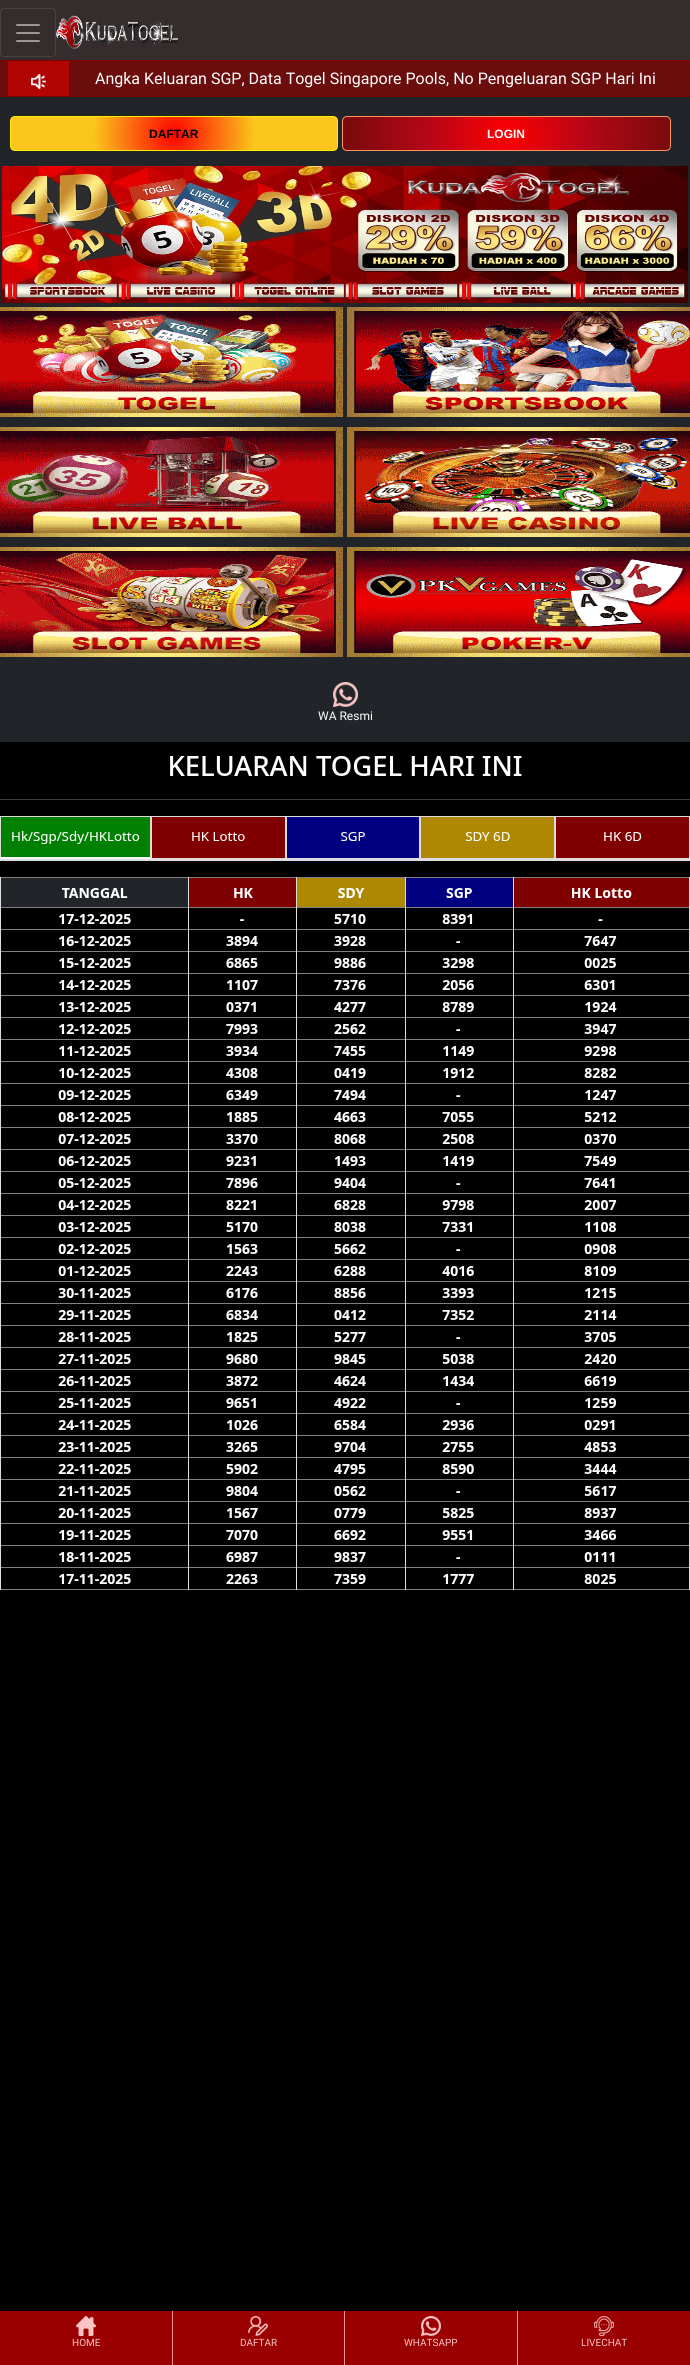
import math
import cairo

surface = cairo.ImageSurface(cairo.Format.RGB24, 690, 2365)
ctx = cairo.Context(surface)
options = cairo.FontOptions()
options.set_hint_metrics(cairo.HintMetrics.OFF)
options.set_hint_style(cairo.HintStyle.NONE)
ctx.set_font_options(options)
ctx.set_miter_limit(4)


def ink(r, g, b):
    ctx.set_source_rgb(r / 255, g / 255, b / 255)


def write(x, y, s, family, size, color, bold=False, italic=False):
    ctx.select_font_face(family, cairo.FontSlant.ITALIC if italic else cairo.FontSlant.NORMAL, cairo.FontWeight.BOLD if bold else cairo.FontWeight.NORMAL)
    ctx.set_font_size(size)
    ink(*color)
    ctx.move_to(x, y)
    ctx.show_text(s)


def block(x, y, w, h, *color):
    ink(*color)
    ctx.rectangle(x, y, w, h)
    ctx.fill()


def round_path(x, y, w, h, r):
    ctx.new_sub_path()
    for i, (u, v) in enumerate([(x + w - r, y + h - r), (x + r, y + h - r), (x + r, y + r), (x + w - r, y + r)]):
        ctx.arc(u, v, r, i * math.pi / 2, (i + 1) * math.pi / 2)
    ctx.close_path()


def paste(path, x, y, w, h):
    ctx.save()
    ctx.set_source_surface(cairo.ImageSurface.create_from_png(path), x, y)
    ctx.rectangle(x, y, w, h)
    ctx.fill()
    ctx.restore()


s1 = dict(family="Roboto", size=16, color=(255, 255, 255))
s2 = dict(family="Liberation Sans", size=12, color=(0, 0, 0), bold=True)
s3 = dict(family="Liberation Sans", size=12, color=(255, 255, 255), bold=True)
s4 = dict(family="Roboto", size=12, color=(255, 255, 255))
s5 = dict(family="Roboto", size=10, color=(251, 197, 197))

ink(33, 37, 41)
ctx.paint()
block(0, 0, 690, 60, 53, 45, 45)
round_path(0.5, 8.5, 55, 48, 3.5)
ink(73, 66, 66)
ctx.set_line_width(1)
ctx.stroke()
paste("pic1.png", 16, 24, 24, 18)
paste("pic2.png", 56, 15, 122, 34)
block(0, 60, 690, 1, 122, 0, 1)
block(0, 96, 690, 1, 122, 0, 1)
block(0, 61, 690, 35, 107, 13, 13)
block(8, 61, 61, 35, 179, 4, 4)
paste("pic3.png", 31, 74, 15, 15)
write(95, 84, "Angka Keluaran SGP, Data Togel Singapore Pools, No Pengeluaran SGP Hari Ini", **s1)
ctx.save()
round_path(10, 116, 328, 35, 5)
ctx.clip()
gradient = cairo.RadialGradient(174, 134, 0, 174, 134, 164)
gradient.add_color_stop_rgba(0, 0.996, 0, 0, 1)
gradient.add_color_stop_rgba(0.49, 0.98, 0.773, 0.11, 1)
gradient.add_color_stop_rgba(1, 0.98, 0.773, 0.11, 1)
ctx.set_source(gradient)
ctx.rectangle(11, 117, 326, 33)
ctx.fill()
ctx.restore()
round_path(10.5, 116.5, 327, 34, 4.5)
ink(255, 237, 0)
ctx.stroke()
write(149, 138, "DAFTAR", **s2)
ctx.save()
round_path(342, 116, 329, 35, 5)
ctx.clip()
gradient = cairo.RadialGradient(507, 134, 0, 507, 134, 164)
gradient.add_color_stop_rgba(0, 0.996, 0, 0, 1)
gradient.add_color_stop_rgba(0.49, 0.71, 0.024, 0.094, 1)
gradient.add_color_stop_rgba(1, 0.471, 0.043, 0.043, 1)
ctx.set_source(gradient)
ctx.rectangle(343, 117, 327, 33)
ctx.fill()
ctx.restore()
round_path(342.5, 116.5, 328, 34, 4.5)
ink(255, 146, 92)
ctx.stroke()
write(487, 138, "LOGIN", **s3)
paste("pic4.png", 2, 166, 686, 137)
paste("pic5.png", 0, 307, 343, 110)
paste("pic6.png", 347, 307, 343, 110)
paste("pic7.png", 0, 427, 343, 110)
paste("pic8.png", 347, 427, 343, 110)
paste("pic9.png", 0, 547, 343, 110)
paste("pic10.png", 347, 547, 343, 110)
paste("pic11.png", 333, 682, 25, 25)
write(318, 720, "WA Resmi", **s4)
paste("pic12.png", 0, 742, 690, 1569)
block(0, 2311, 690, 54, 154, 0, 0)
block(172, 2311, 1, 54, 245, 150, 150)
paste("pic13.png", 76, 2316, 20, 20)
write(72, 2346, "HOME", **s5)
block(344, 2311, 1, 54, 245, 150, 150)
paste("pic14.png", 248, 2316, 20, 20)
write(240, 2346, "DAFTAR", **s5)
block(517, 2311, 1, 54, 245, 150, 150)
paste("pic15.png", 421, 2316, 20, 20)
write(404, 2346, "WHATSAPP", **s5)
paste("pic16.png", 594, 2316, 20, 20)
write(581, 2346, "LIVECHAT", **s5)
surface.write_to_png("screenshot.png")
